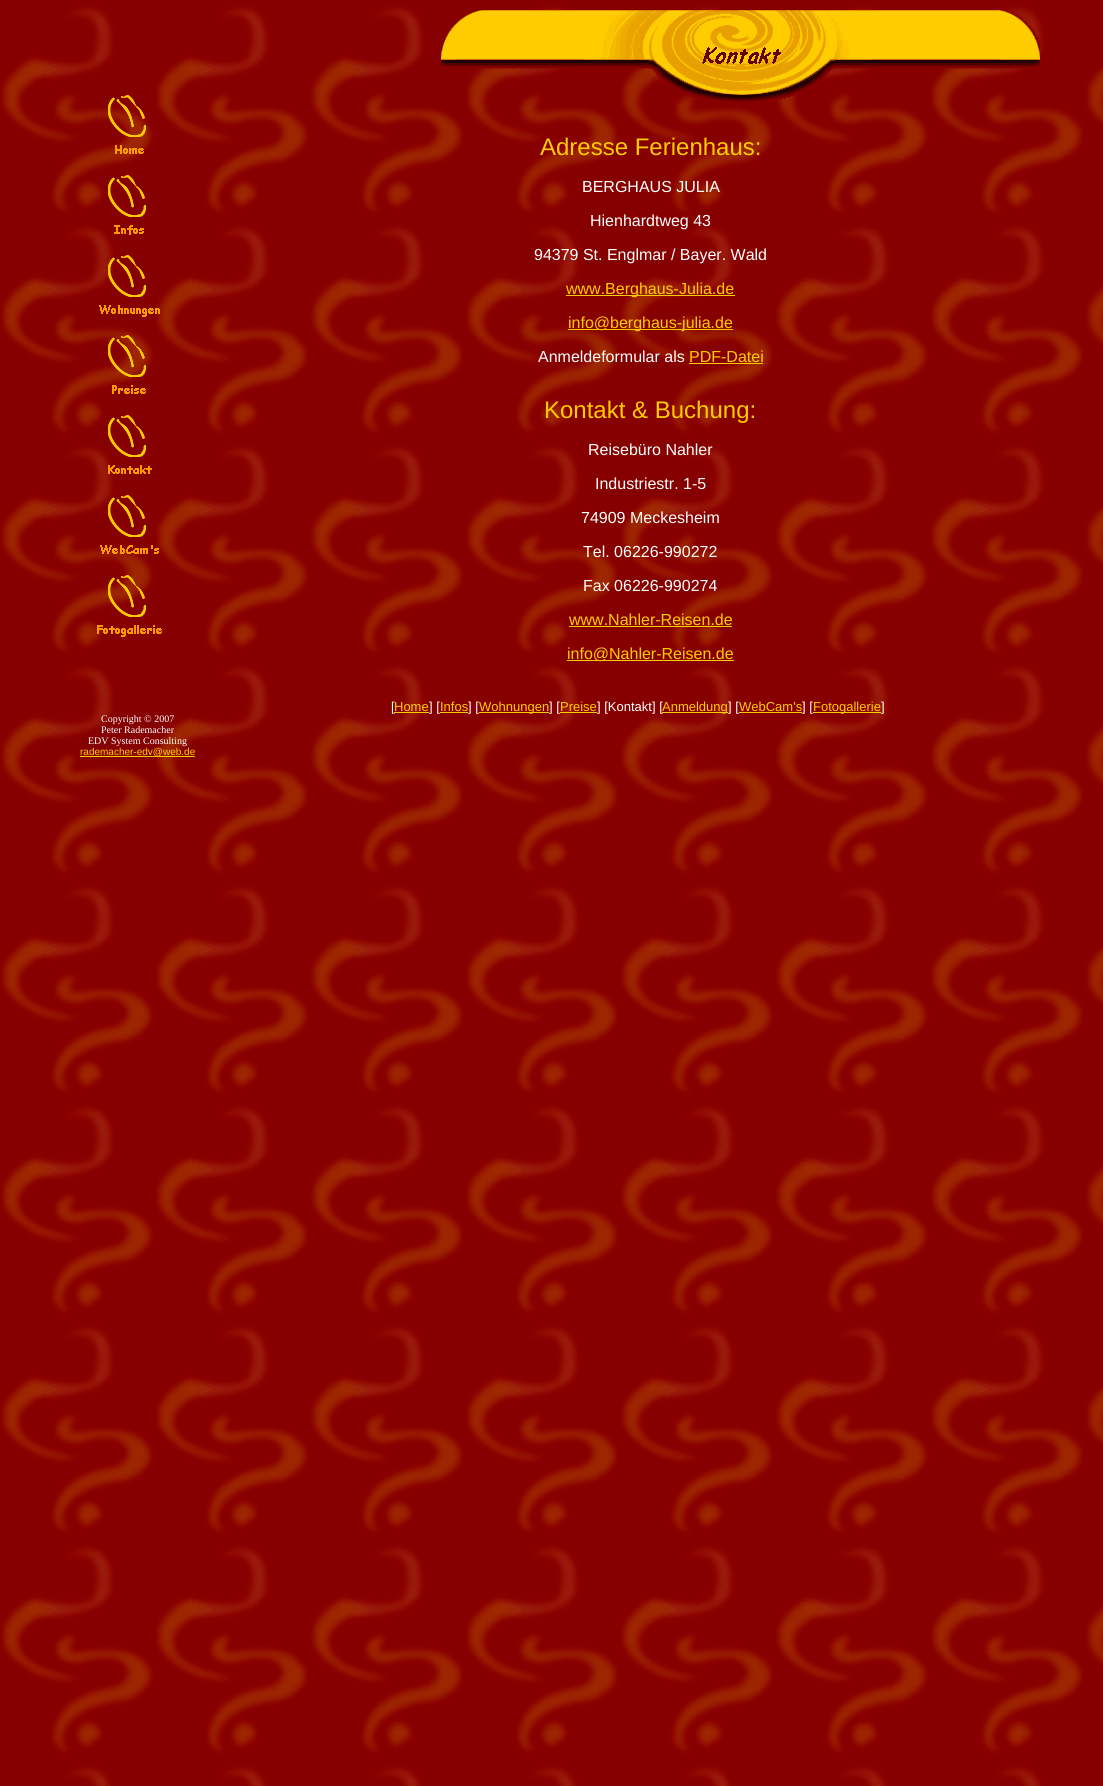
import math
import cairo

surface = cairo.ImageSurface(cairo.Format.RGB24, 1103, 1786)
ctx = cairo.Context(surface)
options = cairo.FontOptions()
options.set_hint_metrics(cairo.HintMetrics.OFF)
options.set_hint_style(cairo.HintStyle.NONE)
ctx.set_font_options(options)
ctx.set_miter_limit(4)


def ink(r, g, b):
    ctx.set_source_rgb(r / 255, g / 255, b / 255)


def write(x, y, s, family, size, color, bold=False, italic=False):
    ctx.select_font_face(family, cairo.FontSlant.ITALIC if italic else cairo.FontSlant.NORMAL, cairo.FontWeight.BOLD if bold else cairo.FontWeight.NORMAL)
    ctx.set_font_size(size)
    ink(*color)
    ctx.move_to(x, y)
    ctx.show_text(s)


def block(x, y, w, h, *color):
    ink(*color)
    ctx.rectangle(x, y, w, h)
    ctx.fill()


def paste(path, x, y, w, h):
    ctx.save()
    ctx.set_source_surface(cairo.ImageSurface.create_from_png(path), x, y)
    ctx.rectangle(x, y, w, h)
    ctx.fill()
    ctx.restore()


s1 = dict(family="Liberation Sans", size=24, color=(255, 204, 0))
s2 = dict(family="Liberation Sans", size=16, color=(255, 255, 255))
s3 = dict(family="Liberation Sans", size=16, color=(255, 204, 0))
s4 = dict(family="Liberation Sans", size=13, color=(255, 255, 255))
s5 = dict(family="Liberation Sans", size=13, color=(255, 204, 0))
s6 = dict(family="Liberation Serif", size=10, color=(255, 255, 255))
s7 = dict(family="Liberation Sans", size=10, color=(255, 204, 0))

ink(255, 255, 255)
ctx.paint()
paste("pic1.png", 0, 0, 1103, 1786)
paste("pic2.png", 441, 10, 599, 92)
write(540, 155, "Adresse Ferienhaus:", **s1)
write(582, 192, "BERGHAUS JULIA", **s2)
write(590, 226, "Hienhardtweg 43", **s2)
write(534, 260, "94379 St. Englmar / Bayer. Wald", **s2)
block(566, 295, 169, 1, 255, 204, 0)
write(566, 294, "www.Berghaus-Julia.de", **s3)
block(568, 329, 165, 1, 255, 204, 0)
write(568, 328, "info@berghaus-julia.de", **s3)
write(538, 362, "Anmeldeformular als", **s2)
write(689, 362, "PDF-Datei", **s3)
block(689, 363, 74, 1, 255, 204, 0)
write(544, 418, "Kontakt & Buchung:", **s1)
write(588, 455, "Reisebüro Nahler", **s2)
write(595, 489, "Industriestr. 1-5", **s2)
write(581, 523, "74909 Meckesheim", **s2)
write(583, 557, "Tel. 06226-990272", **s2)
write(583, 591, "Fax 06226-990274", **s2)
write(569, 625, "www.Nahler-Reisen.de", **s3)
block(569, 626, 163, 1, 255, 204, 0)
block(567, 660, 167, 1, 255, 204, 0)
write(567, 659, "info@Nahler-Reisen.de", **s3)
write(391, 711, "[", **s4)
write(394, 711, "Home", **s5)
block(394, 712, 35, 1, 255, 204, 0)
write(429, 711, "] [", **s4)
write(440, 711, "Infos", **s5)
block(440, 712, 28, 1, 255, 204, 0)
write(468, 711, "] [", **s4)
block(479, 712, 70, 1, 255, 204, 0)
write(479, 711, "Wohnungen", **s5)
write(549, 711, "] [", **s4)
write(560, 711, "Preise", **s5)
block(560, 712, 37, 1, 255, 204, 0)
write(597, 711, "] [Kontakt] [", **s4)
block(662, 712, 66, 1, 255, 204, 0)
write(662, 711, "Anmeldung", **s5)
write(728, 711, "] [", **s4)
write(739, 711, "WebCam's", **s5)
block(739, 712, 63, 1, 255, 204, 0)
write(802, 711, "] [", **s4)
block(813, 712, 68, 1, 255, 204, 0)
write(813, 711, "Fotogallerie", **s5)
write(881, 711, "]", **s4)
paste("pic3.png", 108, 95, 38, 59)
paste("pic4.png", 108, 175, 38, 60)
paste("pic5.png", 99, 255, 61, 62)
paste("pic6.png", 108, 335, 38, 59)
paste("pic7.png", 108, 415, 44, 59)
paste("pic8.png", 100, 495, 59, 59)
paste("pic9.png", 97, 575, 65, 62)
write(101, 722, "Copyright © 2007", **s6)
write(101, 733, "Peter Rademacher", **s6)
write(88, 744, "EDV System Consulting", **s6)
block(80, 756, 115, 1, 255, 204, 0)
write(80, 755, "rademacher-edv@web.de", **s7)
surface.write_to_png("screenshot.png")
